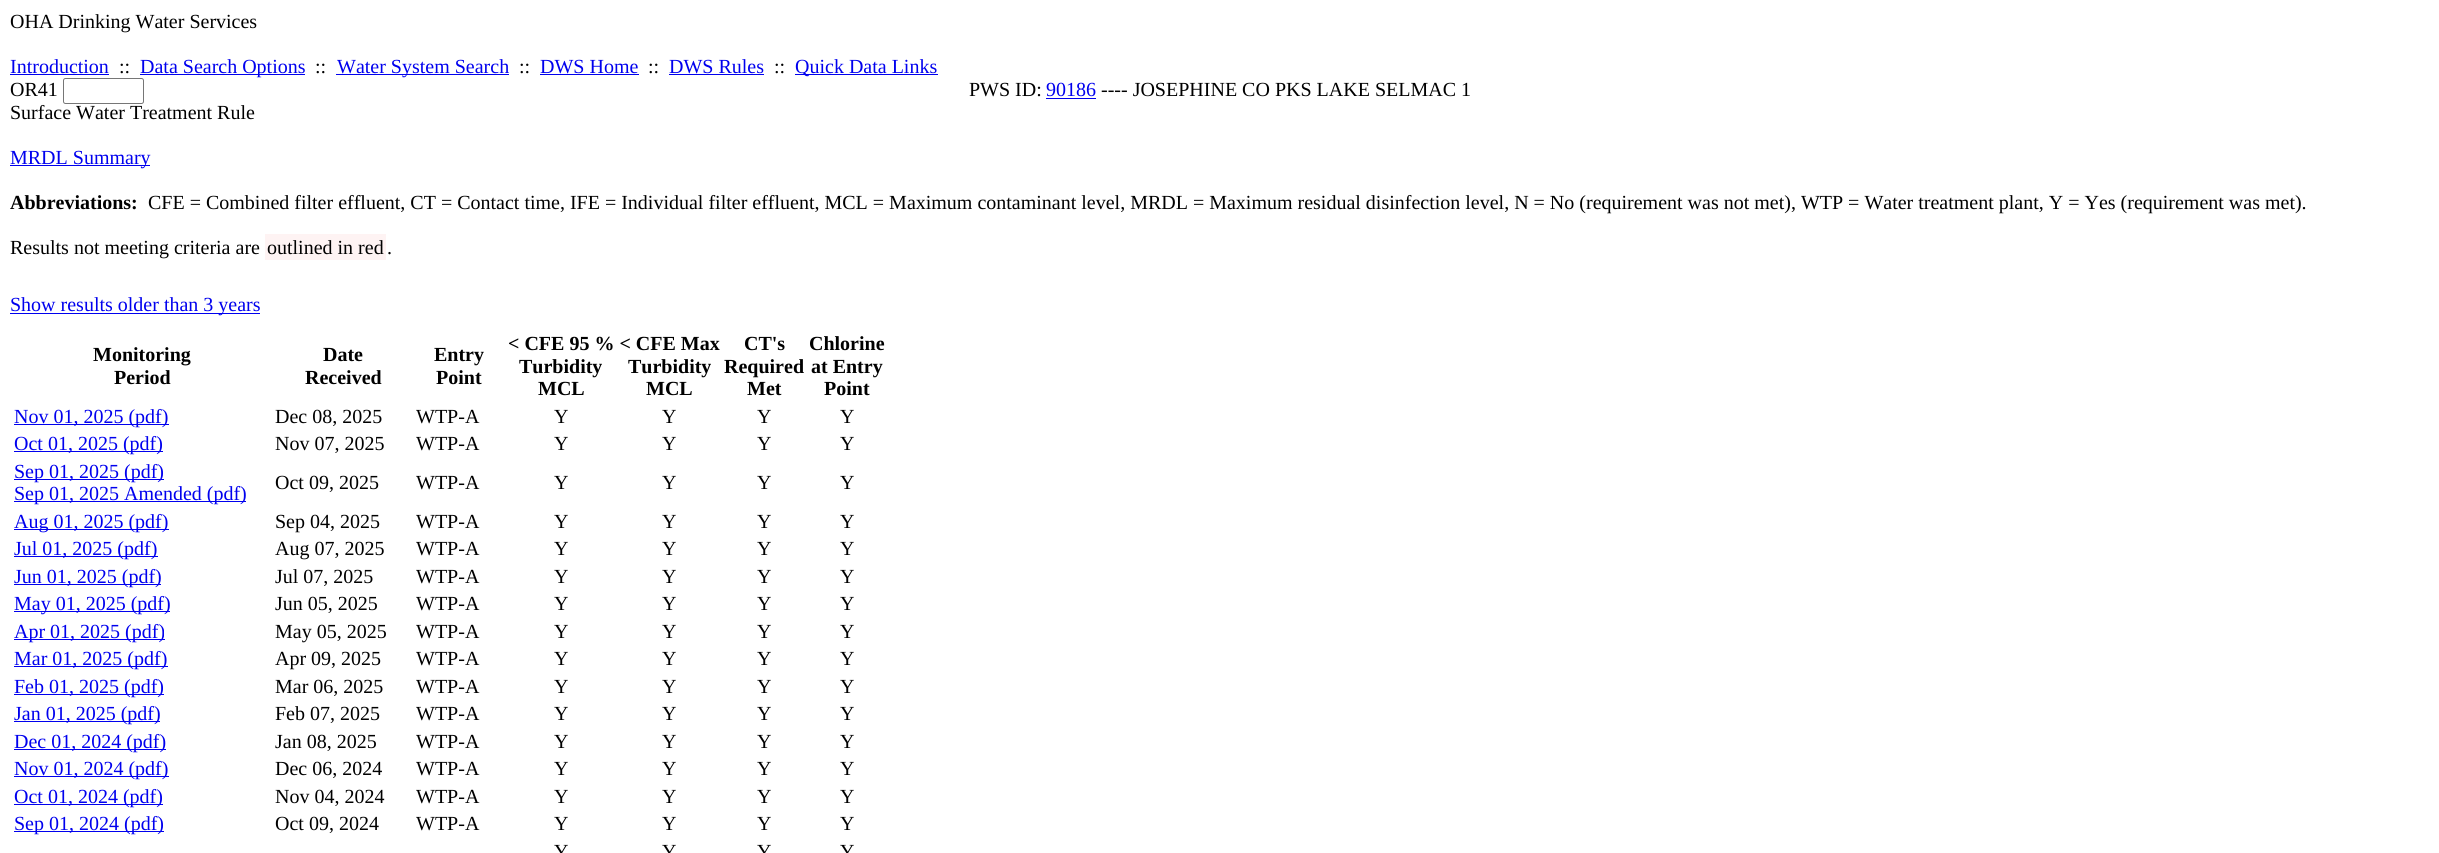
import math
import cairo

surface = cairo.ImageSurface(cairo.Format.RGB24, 2439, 853)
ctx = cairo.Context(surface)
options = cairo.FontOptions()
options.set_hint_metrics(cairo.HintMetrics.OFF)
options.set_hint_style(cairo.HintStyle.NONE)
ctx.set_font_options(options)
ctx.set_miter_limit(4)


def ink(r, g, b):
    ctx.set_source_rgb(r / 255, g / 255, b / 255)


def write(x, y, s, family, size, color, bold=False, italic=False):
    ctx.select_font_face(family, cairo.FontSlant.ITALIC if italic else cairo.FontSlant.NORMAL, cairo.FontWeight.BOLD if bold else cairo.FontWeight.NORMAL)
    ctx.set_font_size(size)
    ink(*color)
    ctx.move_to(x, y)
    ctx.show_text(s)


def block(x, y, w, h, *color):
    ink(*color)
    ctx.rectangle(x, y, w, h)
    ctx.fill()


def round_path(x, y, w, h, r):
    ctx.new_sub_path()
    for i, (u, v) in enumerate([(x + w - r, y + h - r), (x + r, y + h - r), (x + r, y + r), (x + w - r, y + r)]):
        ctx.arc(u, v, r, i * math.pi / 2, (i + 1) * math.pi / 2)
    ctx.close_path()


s1 = dict(family="Liberation Serif", size=20, color=(0, 0, 0))
s2 = dict(family="Liberation Serif", size=20, color=(0, 0, 238))
s3 = dict(family="Liberation Serif", size=20, color=(0, 0, 0), bold=True)

ink(255, 255, 255)
ctx.paint()
write(10, 28, "OHA Drinking Water Services", **s1)
write(10, 73, "Introduction", **s2)
block(10, 74, 99, 1, 0, 0, 238)
write(119, 73, "::", **s1)
block(140, 74, 165, 1, 0, 0, 238)
write(140, 73, "Data Search Options", **s2)
write(315, 73, "::", **s1)
block(336, 74, 173, 1, 0, 0, 238)
write(337, 73, "Water System Search", **s2)
write(519, 73, "::", **s1)
write(540, 73, "DWS Home", **s2)
block(540, 74, 99, 1, 0, 0, 238)
write(648, 73, "::", **s1)
write(669, 73, "DWS Rules", **s2)
block(669, 74, 95, 1, 0, 0, 238)
write(774, 73, "::", **s1)
block(795, 74, 143, 1, 0, 0, 238)
write(795, 73, "Quick Data Links", **s2)
write(10, 96, "OR41", **s1)
round_path(63.5, 78.5, 80, 25, 2)
ink(118, 118, 118)
ctx.set_line_width(1)
ctx.stroke()
write(969, 96, "PWS ID:", **s1)
write(1046, 96, "90186", **s2)
block(1046, 98, 50, 1, 0, 0, 238)
write(1101, 96, "---- JOSEPHINE CO PKS LAKE SELMAC 1", **s1)
write(10, 119, "Surface Water Treatment Rule", **s1)
block(10, 165, 140, 1, 0, 0, 238)
write(10, 164, "MRDL Summary", **s2)
write(10, 209, "Abbreviations:", **s3)
write(148, 209, "CFE = Combined filter effluent, CT = Contact time, IFE = Individual filter effluent, MCL = Maximum contaminant level, MRDL = Maximum residual disinfection level, N = No (requirement was not met), WTP = Water treatment plant, Y = Yes (requirement was met).", **s1)
write(10, 254, "Results not meeting criteria are", **s1)
block(265, 234, 121, 26, 254, 243, 243)
write(267, 254, "outlined in red", **s1)
write(387, 254, ".", **s1)
block(10, 313, 250, 1, 0, 0, 238)
write(10, 311, "Show results older than 3 years", **s2)
write(93, 361, "Monitoring", **s3)
write(114, 384, "Period", **s3)
write(323, 361, "Date", **s3)
write(305, 384, "Received", **s3)
write(434, 361, "Entry", **s3)
write(436, 384, "Point", **s3)
write(508, 350, "< CFE 95 % < CFE Max", **s3)
write(519, 373, "Turbidity", **s3)
write(538, 395, "MCL", **s3)
write(744, 350, "CT's", **s3)
write(724, 373, "Required", **s3)
write(747, 395, "Met", **s3)
write(809, 350, "Chlorine", **s3)
write(811, 373, "at Entry", **s3)
write(824, 395, "Point", **s3)
write(628, 373, "Turbidity", **s3)
write(646, 395, "MCL", **s3)
block(14, 424, 155, 1, 0, 0, 238)
write(14, 423, "Nov 01, 2025 (pdf)", **s2)
write(275, 423, "Dec 08, 2025", **s1)
write(416, 423, "WTP-A", **s1)
write(554, 423, "Y", **s1)
write(662, 423, "Y", **s1)
write(757, 423, "Y", **s1)
write(840, 423, "Y", **s1)
block(14, 451, 149, 1, 0, 0, 238)
write(14, 450, "Oct 01, 2025 (pdf)", **s2)
write(275, 450, "Nov 07, 2025", **s1)
write(416, 450, "WTP-A", **s1)
write(554, 450, "Y", **s1)
write(662, 450, "Y", **s1)
write(757, 450, "Y", **s1)
write(840, 450, "Y", **s1)
block(14, 479, 150, 1, 0, 0, 238)
write(14, 478, "Sep 01, 2025 (pdf)", **s2)
block(14, 501, 232, 1, 0, 0, 238)
write(14, 500, "Sep 01, 2025 Amended (pdf)", **s2)
write(275, 489, "Oct 09, 2025", **s1)
write(416, 489, "WTP-A", **s1)
write(554, 489, "Y", **s1)
write(662, 489, "Y", **s1)
write(757, 489, "Y", **s1)
write(840, 489, "Y", **s1)
block(14, 529, 155, 1, 0, 0, 238)
write(14, 528, "Aug 01, 2025 (pdf)", **s2)
write(275, 528, "Sep 04, 2025", **s1)
write(416, 528, "WTP-A", **s1)
write(554, 528, "Y", **s1)
write(662, 528, "Y", **s1)
write(757, 528, "Y", **s1)
write(840, 528, "Y", **s1)
block(14, 556, 144, 1, 0, 0, 238)
write(14, 555, "Jul 01, 2025 (pdf)", **s2)
write(275, 555, "Aug 07, 2025", **s1)
write(416, 555, "WTP-A", **s1)
write(554, 555, "Y", **s1)
write(662, 555, "Y", **s1)
write(757, 555, "Y", **s1)
write(840, 555, "Y", **s1)
block(14, 584, 147, 1, 0, 0, 238)
write(14, 583, "Jun 01, 2025 (pdf)", **s2)
write(275, 583, "Jul 07, 2025", **s1)
write(416, 583, "WTP-A", **s1)
write(554, 583, "Y", **s1)
write(662, 583, "Y", **s1)
write(757, 583, "Y", **s1)
write(840, 583, "Y", **s1)
block(14, 611, 156, 1, 0, 0, 238)
write(14, 610, "May 01, 2025 (pdf)", **s2)
write(275, 610, "Jun 05, 2025", **s1)
write(416, 610, "WTP-A", **s1)
write(554, 610, "Y", **s1)
write(662, 610, "Y", **s1)
write(757, 610, "Y", **s1)
write(840, 610, "Y", **s1)
block(14, 639, 151, 1, 0, 0, 238)
write(14, 638, "Apr 01, 2025 (pdf)", **s2)
write(275, 638, "May 05, 2025", **s1)
write(416, 638, "WTP-A", **s1)
write(554, 638, "Y", **s1)
write(662, 638, "Y", **s1)
write(757, 638, "Y", **s1)
write(840, 638, "Y", **s1)
block(14, 666, 154, 1, 0, 0, 238)
write(14, 665, "Mar 01, 2025 (pdf)", **s2)
write(275, 665, "Apr 09, 2025", **s1)
write(416, 665, "WTP-A", **s1)
write(554, 665, "Y", **s1)
write(662, 665, "Y", **s1)
write(757, 665, "Y", **s1)
write(840, 665, "Y", **s1)
block(14, 694, 150, 1, 0, 0, 238)
write(14, 693, "Feb 01, 2025 (pdf)", **s2)
write(275, 693, "Mar 06, 2025", **s1)
write(416, 693, "WTP-A", **s1)
write(554, 693, "Y", **s1)
write(662, 693, "Y", **s1)
write(757, 693, "Y", **s1)
write(840, 693, "Y", **s1)
block(14, 721, 146, 1, 0, 0, 238)
write(14, 720, "Jan 01, 2025 (pdf)", **s2)
write(275, 720, "Feb 07, 2025", **s1)
write(416, 720, "WTP-A", **s1)
write(554, 720, "Y", **s1)
write(662, 720, "Y", **s1)
write(757, 720, "Y", **s1)
write(840, 720, "Y", **s1)
block(14, 749, 152, 1, 0, 0, 238)
write(14, 748, "Dec 01, 2024 (pdf)", **s2)
write(275, 748, "Jan 08, 2025", **s1)
write(416, 748, "WTP-A", **s1)
write(554, 748, "Y", **s1)
write(662, 748, "Y", **s1)
write(757, 748, "Y", **s1)
write(840, 748, "Y", **s1)
block(14, 776, 155, 1, 0, 0, 238)
write(14, 775, "Nov 01, 2024 (pdf)", **s2)
write(275, 775, "Dec 06, 2024", **s1)
write(416, 775, "WTP-A", **s1)
write(554, 775, "Y", **s1)
write(662, 775, "Y", **s1)
write(757, 775, "Y", **s1)
write(840, 775, "Y", **s1)
block(14, 804, 149, 1, 0, 0, 238)
write(14, 803, "Oct 01, 2024 (pdf)", **s2)
write(275, 803, "Nov 04, 2024", **s1)
write(416, 803, "WTP-A", **s1)
write(554, 803, "Y", **s1)
write(662, 803, "Y", **s1)
write(757, 803, "Y", **s1)
write(840, 803, "Y", **s1)
block(14, 831, 150, 1, 0, 0, 238)
write(14, 830, "Sep 01, 2024 (pdf)", **s2)
write(275, 830, "Oct 09, 2024", **s1)
write(416, 830, "WTP-A", **s1)
write(554, 830, "Y", **s1)
write(662, 830, "Y", **s1)
write(757, 830, "Y", **s1)
write(840, 830, "Y", **s1)
write(554, 858, "Y", **s1)
write(662, 858, "Y", **s1)
write(757, 858, "Y", **s1)
write(840, 858, "Y", **s1)
surface.write_to_png("screenshot.png")
